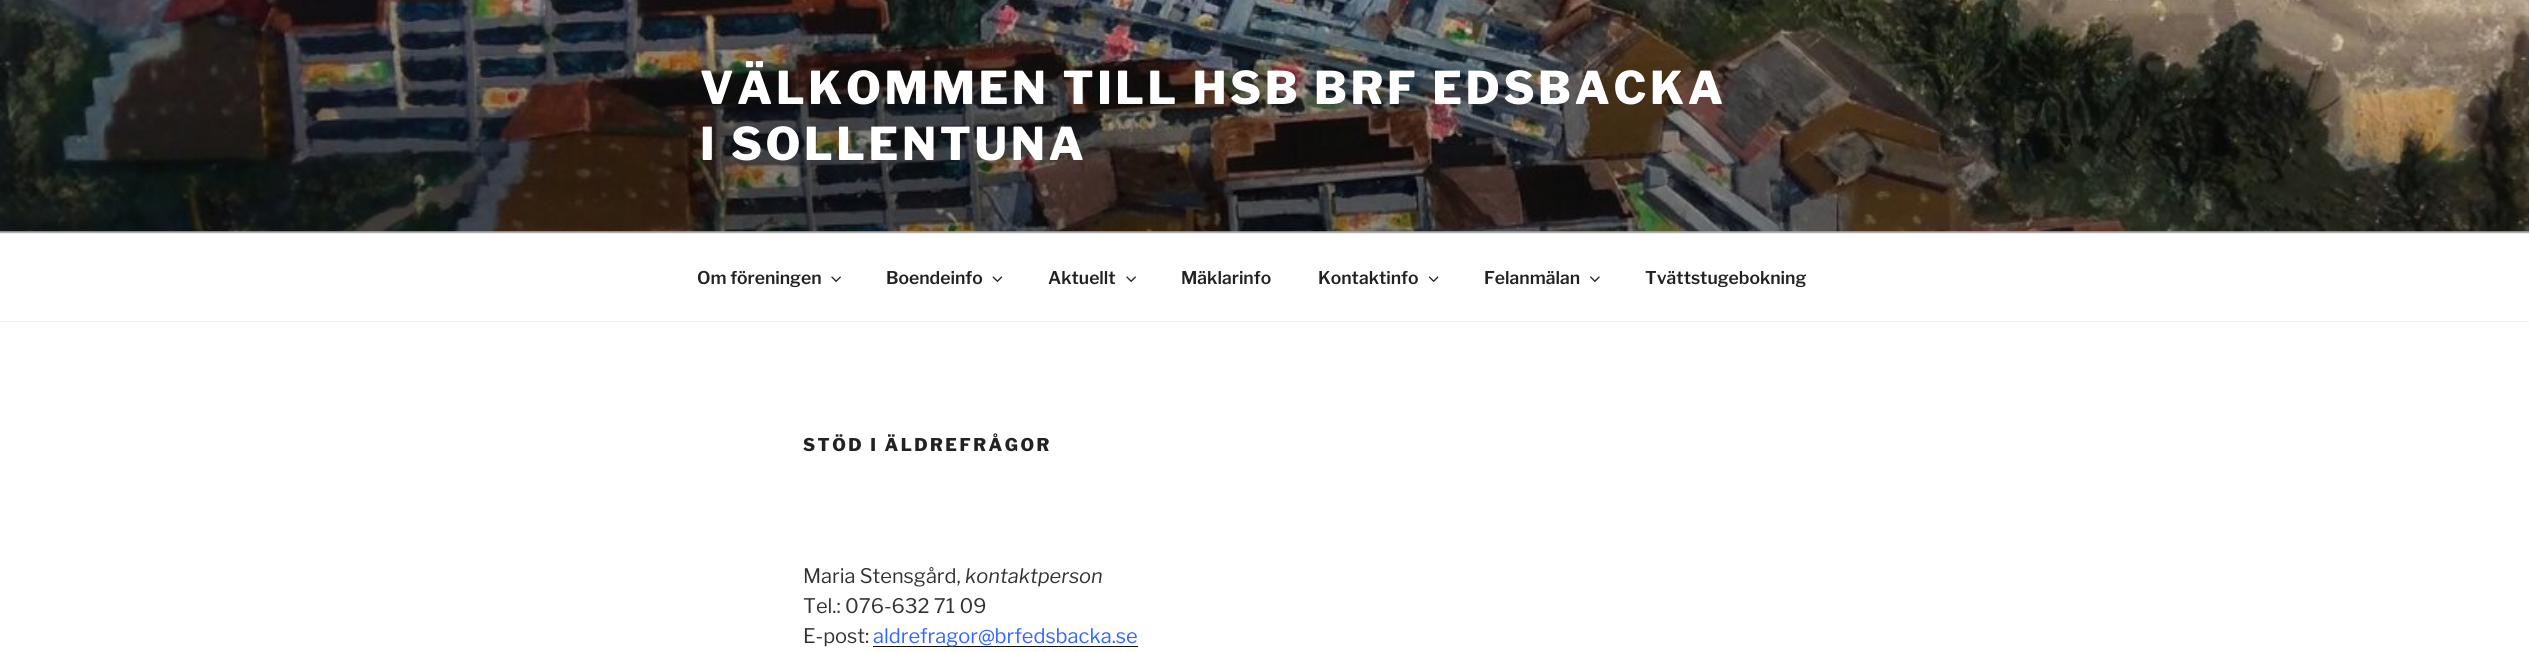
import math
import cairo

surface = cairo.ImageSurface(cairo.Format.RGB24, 2529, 652)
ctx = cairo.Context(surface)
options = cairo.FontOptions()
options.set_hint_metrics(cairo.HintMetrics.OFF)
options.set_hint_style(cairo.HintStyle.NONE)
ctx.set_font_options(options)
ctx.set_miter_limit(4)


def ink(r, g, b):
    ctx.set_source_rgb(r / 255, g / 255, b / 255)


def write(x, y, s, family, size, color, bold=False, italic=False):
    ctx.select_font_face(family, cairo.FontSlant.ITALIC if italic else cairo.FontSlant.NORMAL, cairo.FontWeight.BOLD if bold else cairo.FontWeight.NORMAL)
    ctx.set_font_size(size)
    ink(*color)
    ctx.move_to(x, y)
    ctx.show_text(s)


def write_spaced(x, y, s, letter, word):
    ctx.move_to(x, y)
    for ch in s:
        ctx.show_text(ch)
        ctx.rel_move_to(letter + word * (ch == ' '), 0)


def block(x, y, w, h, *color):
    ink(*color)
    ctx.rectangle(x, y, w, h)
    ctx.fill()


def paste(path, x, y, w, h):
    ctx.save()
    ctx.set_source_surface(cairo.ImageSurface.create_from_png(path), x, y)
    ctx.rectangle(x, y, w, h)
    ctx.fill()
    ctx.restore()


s1 = dict(family="Libre Franklin SemiBold", size=17.5, color=(34, 34, 34))
s2 = dict(family="Libre Franklin", size=20, color=(51, 51, 51))
s3 = dict(family="Libre Franklin", size=20, color=(51, 51, 51), italic=True)
s4 = dict(family="Libre Franklin", size=20, color=(51, 102, 255))

ink(255, 255, 255)
ctx.paint()
block(0, 231, 2529, 2, 250, 250, 250)
paste("pic1.png", 0, 0, 2529, 232)
gradient = cairo.LinearGradient(1265, 0, 1265, 233)
gradient.add_color_stop_rgba(0, 0, 0, 0, 0)
gradient.add_color_stop_rgba(0.75, 0, 0, 0, 0.3)
gradient.add_color_stop_rgba(1, 0, 0, 0, 0.3)
ctx.set_source(gradient)
ctx.rectangle(0, 13, 2529, 220)
ctx.fill()
ctx.select_font_face("Libre Franklin ExtraBold")
ctx.set_font_size(45)
ink(255, 255, 255)
write_spaced(700, 104, "VÄLKOMMEN TILL HSB BRF EDSBACKA", 3.6, 0)
write_spaced(700, 160, "I SOLLENTUNA", 3.6, 0)
block(0, 233, 2529, 1, 238, 238, 238)
block(0, 321, 2529, 1, 238, 238, 238)
write(697, 284, "Om föreningen", **s1)
paste("pic2.png", 831, 276, 10, 6)
write(886, 284, "Boendeinfo", **s1)
paste("pic3.png", 992, 276, 11, 6)
write(1048, 284, "Aktuellt", **s1)
paste("pic2.png", 1126, 276, 10, 6)
write(1181, 284, "Mäklarinfo", **s1)
write(1318, 284, "Kontaktinfo", **s1)
paste("pic4.png", 1428, 276, 11, 6)
write(1484, 284, "Felanmälan", **s1)
paste("pic5.png", 1590, 276, 10, 6)
write(1645, 284, "Tvättstugebokning", **s1)
ctx.select_font_face("Libre Franklin ExtraBold")
write_spaced(803, 451, "STÖD I ÄLDREFRÅGOR", 2.5, 0)
write(803, 583, "Maria Stensgård,", **s2)
write(965, 583, "kontaktperson", **s3)
write(803, 613, "Tel.: 076-632 71 09", **s2)
write(803, 643, "E-post:", **s2)
block(873, 646, 265, 1, 15, 15, 15)
write(873, 643, "aldrefragor@brfedsbacka.se", **s4)
surface.write_to_png("screenshot.png")
